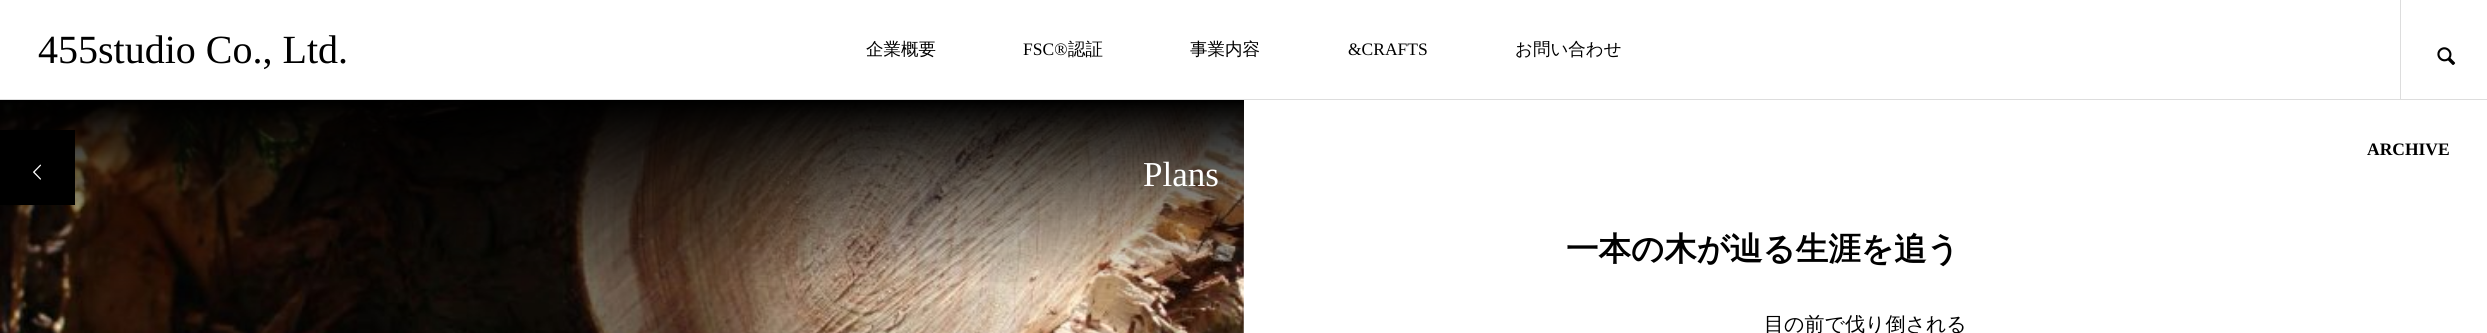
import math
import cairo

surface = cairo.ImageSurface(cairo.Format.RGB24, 2487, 333)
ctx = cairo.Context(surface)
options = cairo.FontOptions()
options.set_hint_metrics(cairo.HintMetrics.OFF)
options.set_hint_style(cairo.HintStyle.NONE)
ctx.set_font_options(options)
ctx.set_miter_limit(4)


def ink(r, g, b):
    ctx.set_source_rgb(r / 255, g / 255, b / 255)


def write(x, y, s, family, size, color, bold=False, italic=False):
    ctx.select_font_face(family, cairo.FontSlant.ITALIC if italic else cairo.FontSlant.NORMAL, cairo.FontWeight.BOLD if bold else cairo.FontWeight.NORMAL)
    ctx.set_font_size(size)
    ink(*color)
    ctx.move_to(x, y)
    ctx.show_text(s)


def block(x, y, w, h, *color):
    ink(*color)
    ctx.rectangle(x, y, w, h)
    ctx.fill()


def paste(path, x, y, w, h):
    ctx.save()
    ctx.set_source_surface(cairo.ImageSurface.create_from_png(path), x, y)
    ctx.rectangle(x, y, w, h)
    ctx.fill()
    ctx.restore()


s1 = dict(family="Liberation Serif", size=40, color=(0, 0, 0))
s2 = dict(family="WenQuanYi Zen Hei Medium", size=17.5, color=(0, 0, 0))
s3 = dict(family="Liberation Serif", size=17.5, color=(0, 0, 0))
s4 = dict(family="Liberation Serif", size=35, color=(255, 255, 255))
s5 = dict(family="Liberation Serif", size=17.5, color=(0, 0, 0), bold=True)
s6 = dict(family="WenQuanYi Zen Hei", size=32.5, color=(0, 0, 0), bold=True)
s7 = dict(family="WenQuanYi Zen Hei Medium", size=20, color=(0, 0, 0))

ink(255, 255, 255)
ctx.paint()
block(0, 99, 2487, 1, 221, 221, 221)
write(38, 63, "455studio Co., Ltd.", **s1)
write(866, 55, "企業概要", **s2)
write(1023, 55, "FSC®", **s3)
write(1068, 55, "認証", **s2)
write(1190, 55, "事業内容", **s2)
write(1348, 55, "&CRAFTS", **s3)
write(1515, 55, "お問い合わせ", **s2)
block(2400, 0, 1, 100, 221, 221, 221)
paste("pic1.png", 2437, 47, 19, 18)
paste("pic2.png", 0, 101, 1244, 232)
gradient = cairo.LinearGradient(622, 100, 622, 286)
gradient.add_color_stop_rgba(0, 0, 0, 0, 1)
gradient.add_color_stop_rgba(1, 0, 0, 0, 0)
ctx.set_source(gradient)
ctx.rectangle(0, 100, 1244, 182)
ctx.fill()
write(1143, 186, "Plans", **s4)
block(0, 130, 75, 75, 0, 0, 0)
paste("pic3.png", 33, 164, 8, 16)
write(2367, 155, "ARCHIVE", **s5)
write(1566, 260, "一本の木が辿る生涯を追う", **s6)
write(1764, 331, "目の前で伐り倒される", **s7)
surface.write_to_png("screenshot.png")
